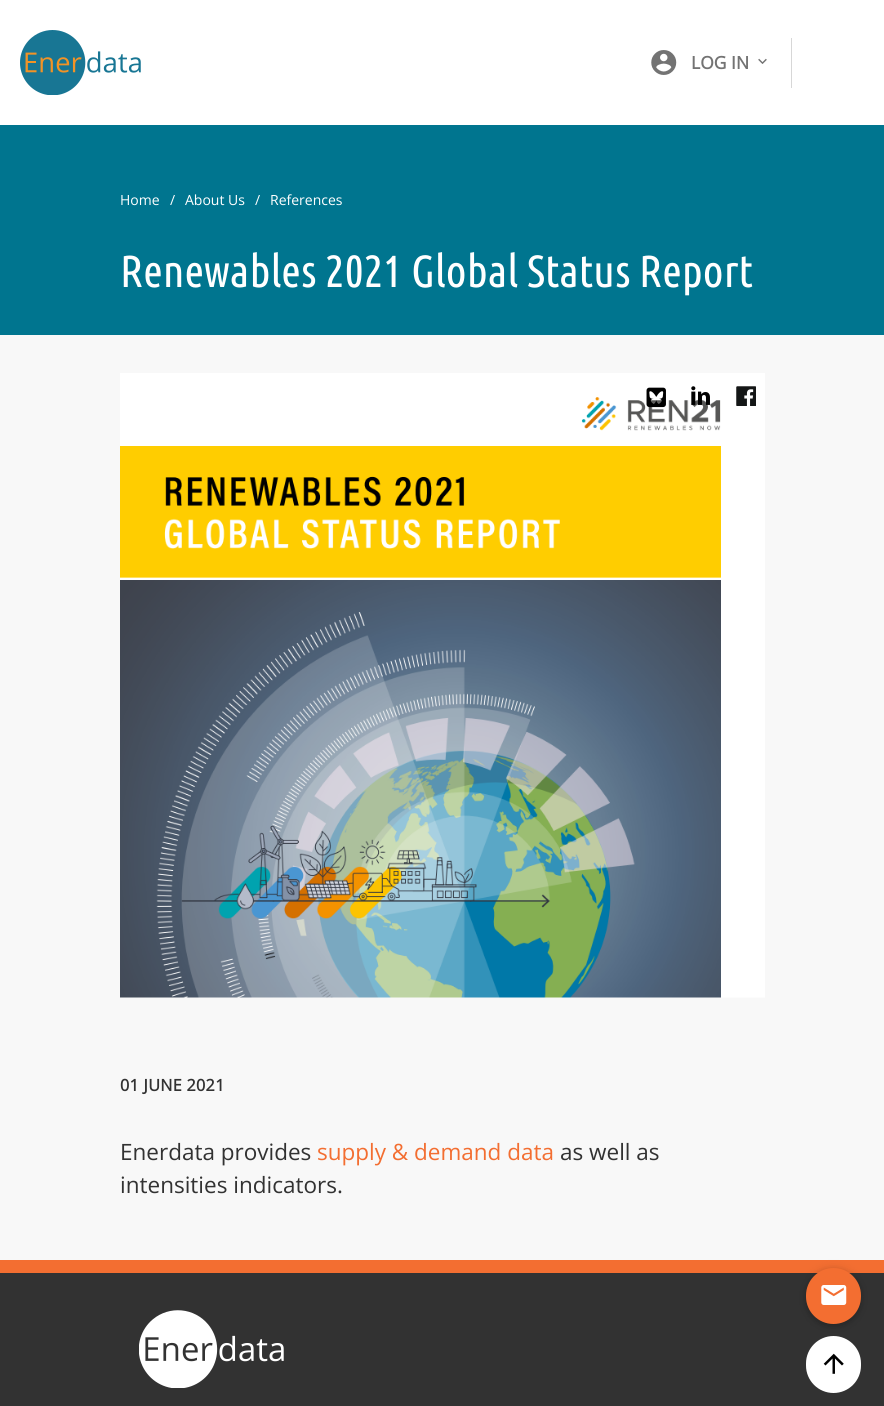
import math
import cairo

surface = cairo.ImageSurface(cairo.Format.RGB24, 884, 1406)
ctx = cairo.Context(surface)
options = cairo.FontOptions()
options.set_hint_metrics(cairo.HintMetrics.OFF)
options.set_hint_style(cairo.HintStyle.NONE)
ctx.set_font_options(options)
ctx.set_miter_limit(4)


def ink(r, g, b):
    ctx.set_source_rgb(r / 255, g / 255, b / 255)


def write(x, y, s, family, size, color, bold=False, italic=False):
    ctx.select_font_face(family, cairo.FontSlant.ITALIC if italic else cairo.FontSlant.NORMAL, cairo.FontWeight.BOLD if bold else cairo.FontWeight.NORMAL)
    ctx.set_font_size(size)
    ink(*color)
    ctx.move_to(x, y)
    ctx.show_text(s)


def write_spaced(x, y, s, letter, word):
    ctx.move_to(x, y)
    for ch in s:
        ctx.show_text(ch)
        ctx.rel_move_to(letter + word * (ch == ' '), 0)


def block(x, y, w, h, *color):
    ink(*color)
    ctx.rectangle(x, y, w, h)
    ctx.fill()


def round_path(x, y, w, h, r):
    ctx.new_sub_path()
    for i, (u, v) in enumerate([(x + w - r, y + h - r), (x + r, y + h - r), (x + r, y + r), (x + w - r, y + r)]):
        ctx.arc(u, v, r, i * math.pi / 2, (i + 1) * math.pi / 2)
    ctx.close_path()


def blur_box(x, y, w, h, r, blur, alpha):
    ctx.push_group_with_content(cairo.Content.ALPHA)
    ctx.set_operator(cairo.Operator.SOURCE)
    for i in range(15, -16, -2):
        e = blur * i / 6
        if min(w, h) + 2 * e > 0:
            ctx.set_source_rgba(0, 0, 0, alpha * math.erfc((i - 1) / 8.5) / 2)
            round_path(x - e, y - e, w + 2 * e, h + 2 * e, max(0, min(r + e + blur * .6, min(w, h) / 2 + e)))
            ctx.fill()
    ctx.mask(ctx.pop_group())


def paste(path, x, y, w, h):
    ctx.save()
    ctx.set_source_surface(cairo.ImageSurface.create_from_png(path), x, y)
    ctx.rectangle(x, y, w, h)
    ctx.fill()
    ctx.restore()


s1 = dict(family="Open Sans", size=17.5, color=(115, 115, 115), bold=True)
s2 = dict(family="Open Sans", size=14, color=(255, 255, 255))
s3 = dict(family="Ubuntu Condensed", size=45, color=(255, 255, 255))
s4 = dict(family="Open Sans", size=22.5, color=(50, 50, 50))
s5 = dict(family="Open Sans", size=22.5, color=(243, 110, 49))

ink(248, 248, 248)
ctx.paint()
block(0, 0, 884, 125, 255, 255, 255)
paste("pic1.png", 20, 30, 121, 65)
block(791, 38, 1, 50, 215, 215, 215)
paste("pic2.png", 651, 50, 26, 25)
write(691, 69, "LOG IN", **s1)
paste("pic3.png", 758, 58, 9, 6)
block(0, 125, 884, 210, 0, 117, 143)
write(120, 205, "Home", **s2)
write(170, 205, "/", **s2)
write(185, 205, "About Us", **s2)
write(255, 205, "/", **s2)
write(270, 205, "References", **s2)
write(120, 287, "Renewables 2021 Global Status Report", **s3)
block(0, 1273, 884, 133, 50, 50, 50)
block(0, 1260, 884, 13, 243, 110, 49)
ink(0, 0, 0)
blur_box(806, 1270, 55, 56, 27.5, 6, 0.12)
blur_box(806, 1270, 55, 56, 27.5, 3, 0.16)
ink(243, 110, 49)
round_path(806, 1268, 55, 56, 27.5)
ctx.fill()
paste("pic4.png", 821, 1285, 26, 20)
ink(255, 255, 255)
round_path(806, 1336, 55, 57, 27.5)
ctx.fill()
paste("pic5.png", 823, 1353, 21, 21)
paste("pic9.png", 120, 373, 645, 625)
paste("pic6.png", 646, 387, 20, 21)
paste("pic7.png", 691, 386, 19, 19)
paste("pic8.png", 736, 386, 20, 20)
ctx.select_font_face("Open Sans", cairo.FontSlant.NORMAL, cairo.FontWeight.BOLD)
ctx.set_font_size(16.25)
ink(50, 50, 50)
write_spaced(120, 1091, "01 JUNE 2021", 0.25, 0)
write(120, 1160, "Enerdata provides", **s4)
write(317, 1160, "supply & demand data", **s5)
write(560, 1160, "as well as", **s4)
write(120, 1193, "intensities indicators.", **s4)
paste("pic10.png", 139, 1310, 145, 78)
surface.write_to_png("screenshot.png")
